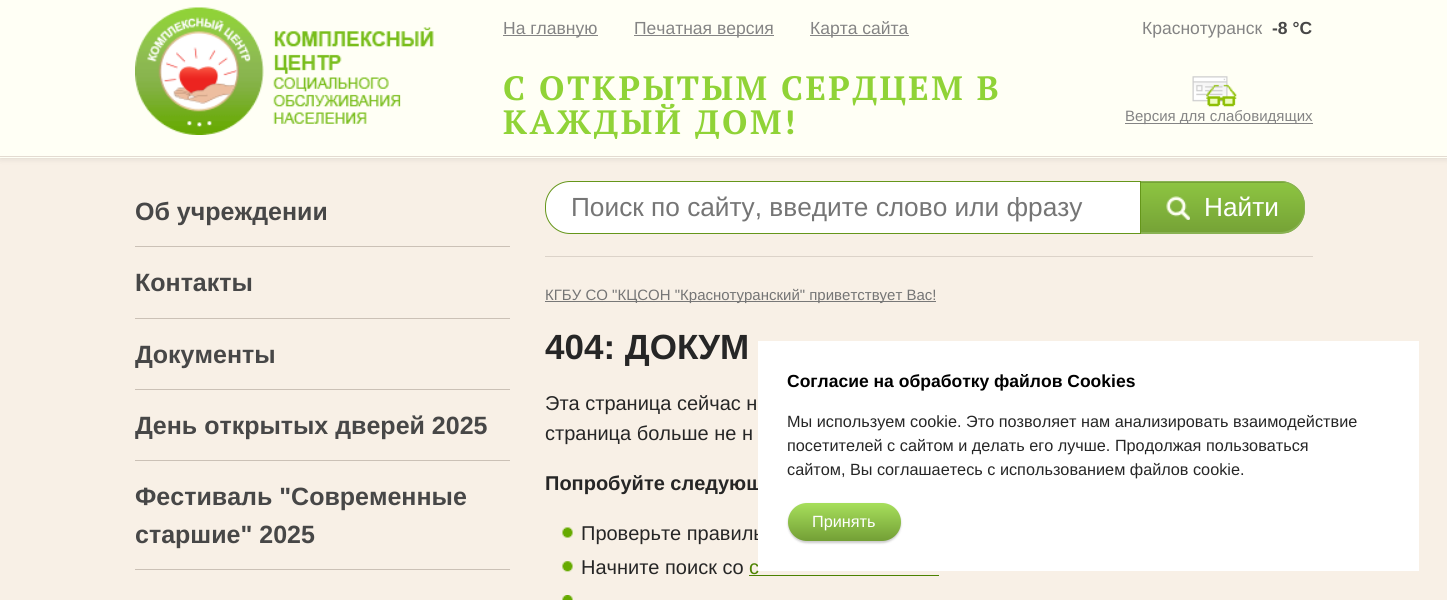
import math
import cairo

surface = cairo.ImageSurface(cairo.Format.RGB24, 1447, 600)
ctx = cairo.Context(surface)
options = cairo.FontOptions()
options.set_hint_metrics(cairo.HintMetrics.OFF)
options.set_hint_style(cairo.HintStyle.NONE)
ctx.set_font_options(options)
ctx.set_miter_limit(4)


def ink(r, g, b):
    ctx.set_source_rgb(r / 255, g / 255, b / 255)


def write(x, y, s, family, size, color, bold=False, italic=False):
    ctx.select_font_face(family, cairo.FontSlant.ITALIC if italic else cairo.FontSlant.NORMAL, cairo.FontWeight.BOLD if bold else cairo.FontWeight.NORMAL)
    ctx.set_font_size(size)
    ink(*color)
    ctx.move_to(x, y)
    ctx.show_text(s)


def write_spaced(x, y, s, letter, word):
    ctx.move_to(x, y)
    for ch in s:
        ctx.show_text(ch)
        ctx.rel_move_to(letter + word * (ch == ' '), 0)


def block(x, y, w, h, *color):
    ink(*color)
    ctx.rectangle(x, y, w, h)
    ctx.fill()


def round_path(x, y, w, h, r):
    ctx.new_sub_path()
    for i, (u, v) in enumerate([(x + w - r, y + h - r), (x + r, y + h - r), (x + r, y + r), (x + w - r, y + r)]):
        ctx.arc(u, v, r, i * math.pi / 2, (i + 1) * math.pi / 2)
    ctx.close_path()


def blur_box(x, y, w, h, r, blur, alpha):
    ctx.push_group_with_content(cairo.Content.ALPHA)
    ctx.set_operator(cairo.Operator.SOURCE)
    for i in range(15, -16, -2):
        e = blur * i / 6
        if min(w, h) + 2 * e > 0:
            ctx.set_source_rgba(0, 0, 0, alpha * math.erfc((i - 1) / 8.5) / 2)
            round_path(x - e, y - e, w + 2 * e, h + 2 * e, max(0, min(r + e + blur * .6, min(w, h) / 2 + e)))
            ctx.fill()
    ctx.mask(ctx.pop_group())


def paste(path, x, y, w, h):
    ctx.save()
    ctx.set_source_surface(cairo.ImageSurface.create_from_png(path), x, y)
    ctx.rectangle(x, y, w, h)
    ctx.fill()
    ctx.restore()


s1 = dict(family="Liberation Sans", size=17.5, color=(132, 132, 132))
s2 = dict(family="Liberation Sans", size=17.5, color=(71, 71, 71), bold=True)
s3 = dict(family="Liberation Sans", size=15, color=(132, 132, 132))
s4 = dict(family="Liberation Sans", size=25, color=(71, 71, 71), bold=True)
s5 = dict(family="Liberation Sans", size=26.25, color=(117, 117, 117))
s6 = dict(family="Liberation Sans", size=26.25, color=(255, 255, 255))
s7 = dict(family="Liberation Sans", size=15, color=(117, 117, 117))
s8 = dict(family="Liberation Sans", size=35, color=(38, 38, 38), bold=True)
s9 = dict(family="Liberation Sans", size=20, color=(38, 38, 38))
s10 = dict(family="Liberation Sans", size=20, color=(38, 38, 38), bold=True)
s11 = dict(family="Liberation Sans", size=20, color=(76, 130, 1))
s12 = dict(family="Liberation Sans", size=17.5, color=(0, 0, 0), bold=True)
s13 = dict(family="Liberation Sans", size=16.25, color=(38, 38, 38))
s14 = dict(family="Liberation Sans", size=16.25, color=(255, 255, 255))

ink(248, 240, 230)
ctx.paint()
ink(0, 0, 0)
blur_box(0, 1, 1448, 158, 0, 3, 0.1)
block(0, 0, 1447, 158, 255, 255, 245)
block(0, 156, 1447, 1, 227, 219, 209)
paste("pic1.png", 135, 7, 299, 128)
block(503, 35, 95, 1, 132, 132, 132)
write(503, 34, "На главную", **s1)
block(634, 35, 140, 1, 132, 132, 132)
write(634, 34, "Печатная версия", **s1)
block(810, 35, 99, 1, 132, 132, 132)
write(810, 34, "Карта сайта", **s1)
write(1142, 34, "Краснотуранск", **s1)
write(1272, 34, "-8 °С", **s2)
ctx.select_font_face("PT Serif", cairo.FontSlant.NORMAL, cairo.FontWeight.BOLD)
ctx.set_font_size(33.75)
ink(144, 211, 55)
write_spaced(503, 100, "С ОТКРЫТЫМ СЕРДЦЕМ В", 2.5, 0)
ctx.save()
ctx.rectangle(503, 8, 810, 131)
ctx.clip()
write_spaced(503, 134, "КАЖДЫЙ ДОМ!", 2.5, 0)
ctx.restore()
paste("pic2.png", 1192, 76, 45, 31)
block(1125, 123, 188, 1, 132, 132, 132)
write(1125, 121, "Версия для слабовидящих", **s3)
block(135, 246, 375, 1, 203, 193, 182)
write(135, 220, "Об учреждении", **s4)
block(135, 318, 375, 1, 203, 193, 182)
write(135, 291, "Контакты", **s4)
block(135, 389, 375, 1, 203, 193, 182)
write(135, 363, "Документы", **s4)
block(135, 460, 375, 1, 203, 193, 182)
write(135, 434, "День открытых дверей 2025", **s4)
block(135, 569, 375, 1, 203, 193, 182)
write(135, 505, "Фестиваль \"Современные", **s4)
write(135, 543, "старшие\" 2025", **s4)
block(545, 256, 768, 1, 220, 211, 201)
ink(255, 255, 255)
ctx.new_path()
ctx.move_to(570, 181.5)
ctx.line_to(1140.5, 181.5)
ctx.line_to(1140.5, 233.5)
ctx.line_to(570, 233.5)
ctx.curve_to(556.5, 233.5, 545.5, 222.5, 545.5, 209)
ctx.line_to(545.5, 206)
ctx.curve_to(545.5, 192.5, 556.5, 181.5, 570, 181.5)
ctx.close_path()
ctx.fill_preserve()
ink(101, 150, 26)
ctx.set_line_width(1)
ctx.stroke()
write(571, 216, "Поиск по сайту, введите слово или фразу", **s5)
ctx.save()
ctx.new_path()
ctx.move_to(1141, 181)
ctx.line_to(1280, 181)
ctx.curve_to(1294, 181, 1305, 192, 1305, 206)
ctx.line_to(1305, 209)
ctx.curve_to(1305, 223, 1294, 234, 1280, 234)
ctx.line_to(1141, 234)
ctx.close_path()
ctx.clip()
gradient = cairo.LinearGradient(1223, 183, 1223, 233)
gradient.add_color_stop_rgba(0, 0.553, 0.769, 0.255, 1)
gradient.add_color_stop_rgba(1, 0.459, 0.635, 0.212, 1)
ctx.set_source(gradient)
ctx.rectangle(1141, 183, 164, 50)
ctx.fill()
gradient = cairo.LinearGradient(1223, 133, 1223, 183)
gradient.add_color_stop_rgba(0, 0.553, 0.769, 0.255, 1)
gradient.add_color_stop_rgba(1, 0.459, 0.635, 0.212, 1)
ctx.set_source(gradient)
ctx.rectangle(1141, 181, 149, 2)
ctx.fill()
ctx.restore()
ink(137, 178, 83)
ctx.set_fill_rule(cairo.FillRule.EVEN_ODD)
ctx.new_path()
ctx.move_to(1141, 181)
ctx.line_to(1280, 181)
ctx.curve_to(1294, 181, 1305, 192, 1305, 206)
ctx.line_to(1305, 209)
ctx.curve_to(1305, 223, 1294, 234, 1280, 234)
ctx.line_to(1141, 234)
ctx.close_path()
ctx.move_to(1141, 182)
ctx.line_to(1280, 182)
ctx.curve_to(1293, 182, 1304, 193, 1304, 206)
ctx.line_to(1304, 209)
ctx.curve_to(1304, 222, 1293, 232, 1280, 232)
ctx.line_to(1141, 232)
ctx.close_path()
ctx.fill()
paste("pic3.png", 1166, 196, 24, 24)
write(1204, 216, "Найти", **s6)
block(545, 301, 391, 1, 120, 120, 120)
write(545, 300, "КГБУ СО \"КЦСОН \"Краснотуранский\" приветствует Вас!", **s7)
write(545, 359, "404: ДОКУМ", **s8)
write(545, 410, "Эта страница сейчас н", **s9)
write(545, 440, "страница больше не н", **s9)
write(545, 490, "Попробуйте следующ", **s10)
paste("pic4.png", 562, 527, 11, 11)
write(581, 540, "Проверьте правиль", **s9)
paste("pic5.png", 562, 561, 11, 11)
write(581, 574, "Начните поиск со", **s9)
write(749, 574, "с", **s11)
block(749, 575, 190, 1, 76, 130, 1)
paste("pic6.png", 562, 595, 11, 5)
block(758, 341, 661, 230, 255, 255, 255)
write(787, 387, "Согласие на обработку файлов Сookies", **s12)
write(787, 427, "Мы используем cookie. Это позволяет нам анализировать взаимодействие", **s13)
write(787, 451, "посетителей с сайтом и делать его лучше. Продолжая пользоваться", **s13)
write(787, 475, "сайтом, Вы соглашаетесь с использованием файлов cookie.", **s13)
ink(0, 0, 0)
blur_box(788, 504, 113, 39, 19.5, 1, 0.2)
gradient = cairo.LinearGradient(844, 503, 844, 541)
gradient.add_color_stop_rgba(0, 0.655, 0.875, 0.357, 1)
gradient.add_color_stop_rgba(1, 0.451, 0.624, 0.208, 1)
ctx.set_source(gradient)
round_path(788, 503, 113, 38, 19)
ctx.fill()
write(812, 527, "Принять", **s14)
surface.write_to_png("screenshot.png")
